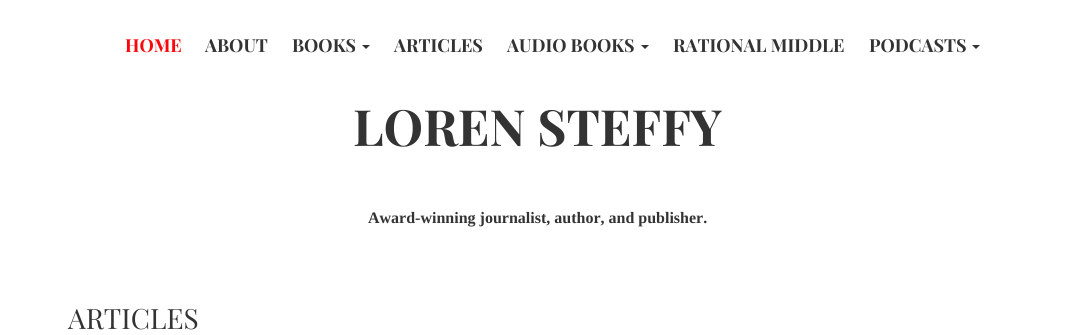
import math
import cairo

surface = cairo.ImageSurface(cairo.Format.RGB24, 1075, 335)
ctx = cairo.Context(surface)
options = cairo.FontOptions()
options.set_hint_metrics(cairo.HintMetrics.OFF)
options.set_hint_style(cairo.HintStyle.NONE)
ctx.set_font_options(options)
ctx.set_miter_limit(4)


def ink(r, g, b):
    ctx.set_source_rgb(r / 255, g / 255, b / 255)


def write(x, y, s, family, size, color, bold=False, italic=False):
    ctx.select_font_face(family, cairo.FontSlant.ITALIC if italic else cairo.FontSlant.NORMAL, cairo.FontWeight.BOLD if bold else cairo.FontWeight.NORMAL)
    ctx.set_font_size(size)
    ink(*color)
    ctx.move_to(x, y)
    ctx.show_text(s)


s1 = dict(family="Playfair Display", size=18, color=(252, 6, 12), bold=True)
s2 = dict(family="Playfair Display", size=18, color=(51, 51, 51), bold=True)
s3 = dict(family="Playfair Display", size=50, color=(51, 51, 51), bold=True)
s4 = dict(family="Liberation Serif", size=16, color=(51, 51, 51), bold=True)
s5 = dict(family="Playfair Display", size=28, color=(51, 51, 51))

ink(255, 255, 255)
ctx.paint()
write(125, 52, "HOME", **s1)
write(205, 52, "ABOUT", **s2)
write(292, 52, "BOOKS", **s2)
ctx.new_path()
ctx.move_to(362, 45)
ctx.line_to(370, 45)
ctx.line_to(366, 49)
ctx.close_path()
ctx.fill()
write(394, 52, "ARTICLES", **s2)
write(507, 52, "AUDIO BOOKS", **s2)
ctx.new_path()
ctx.move_to(641, 45)
ctx.line_to(649, 45)
ctx.line_to(645, 49)
ctx.close_path()
ctx.fill()
write(673, 52, "RATIONAL MIDDLE", **s2)
write(869, 52, "PODCASTS", **s2)
ctx.new_path()
ctx.move_to(972, 45)
ctx.line_to(980, 45)
ctx.line_to(976, 49)
ctx.close_path()
ctx.fill()
write(353, 146, "LOREN STEFFY", **s3)
write(368, 223, "Award-winning journalist, author, and publisher.", **s4)
write(68, 329, "ARTICLES", **s5)
surface.write_to_png("screenshot.png")
